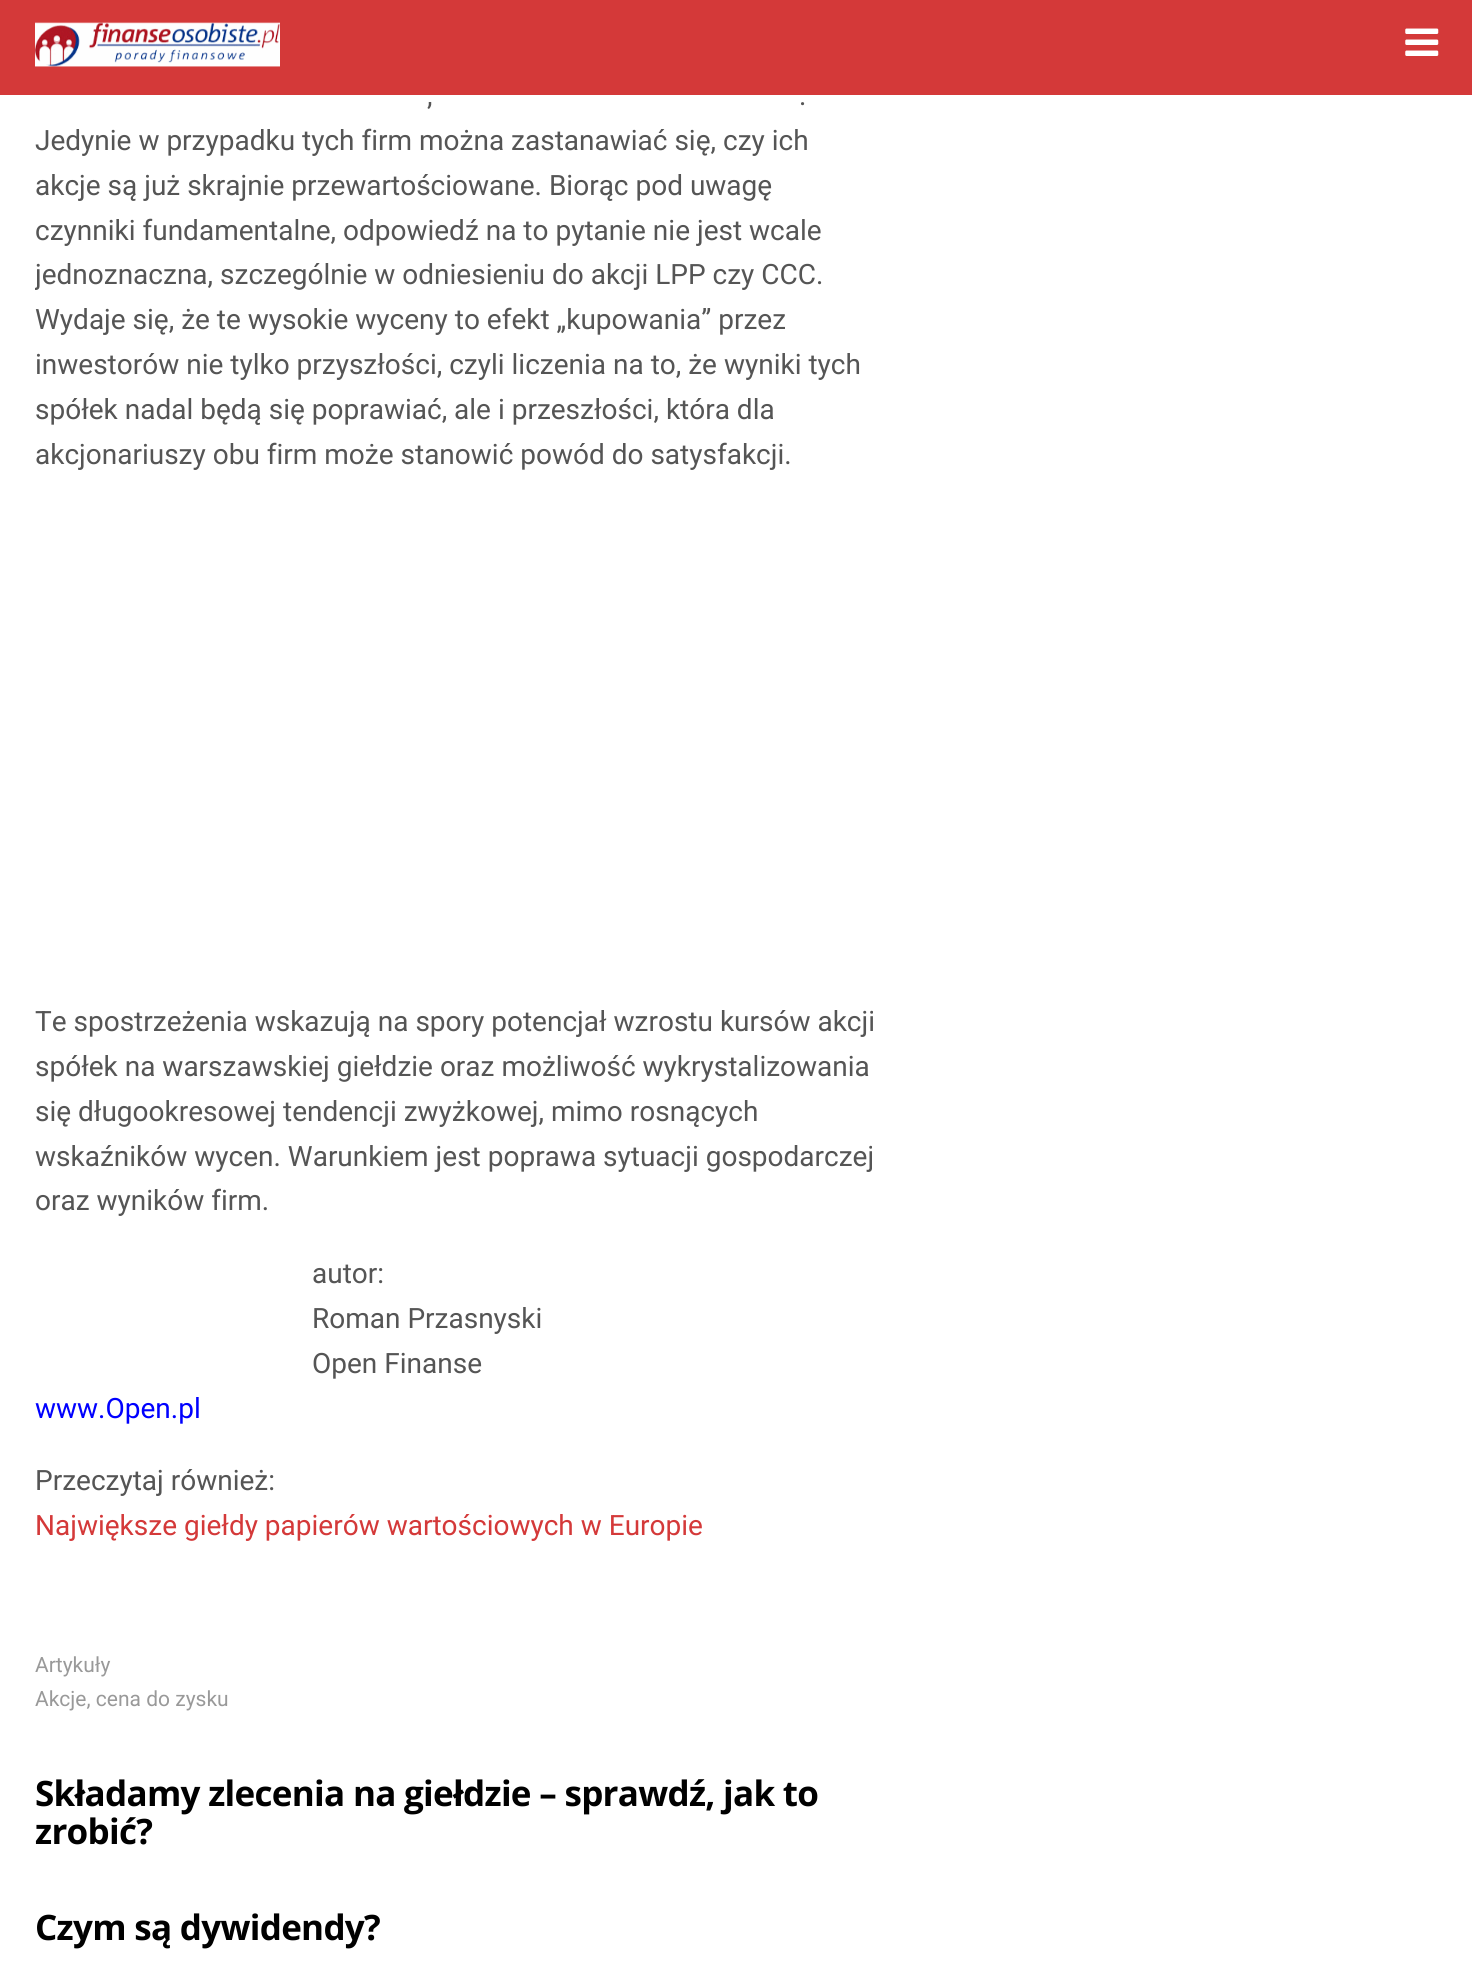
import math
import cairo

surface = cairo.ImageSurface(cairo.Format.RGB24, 1472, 1982)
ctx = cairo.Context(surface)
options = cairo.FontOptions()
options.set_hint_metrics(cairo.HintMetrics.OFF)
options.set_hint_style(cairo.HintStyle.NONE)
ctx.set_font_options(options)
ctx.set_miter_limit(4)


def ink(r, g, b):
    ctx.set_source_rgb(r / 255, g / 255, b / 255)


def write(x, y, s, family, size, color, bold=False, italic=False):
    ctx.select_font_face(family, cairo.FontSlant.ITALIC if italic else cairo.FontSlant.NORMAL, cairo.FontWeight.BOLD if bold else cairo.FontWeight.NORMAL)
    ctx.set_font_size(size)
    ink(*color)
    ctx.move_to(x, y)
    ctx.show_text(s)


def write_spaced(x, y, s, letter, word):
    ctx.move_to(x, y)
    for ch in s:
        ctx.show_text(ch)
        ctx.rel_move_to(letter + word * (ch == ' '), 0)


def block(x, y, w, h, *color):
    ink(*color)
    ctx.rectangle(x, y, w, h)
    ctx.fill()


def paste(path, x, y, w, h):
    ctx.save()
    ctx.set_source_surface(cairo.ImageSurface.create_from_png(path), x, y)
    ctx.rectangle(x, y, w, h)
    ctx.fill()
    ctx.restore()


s1 = dict(family="Roboto", size=28, color=(85, 85, 85))
s2 = dict(family="Roboto", size=28, color=(0, 0, 255))
s3 = dict(family="Roboto", size=28, color=(212, 57, 57))
s4 = dict(family="Roboto", size=21, color=(153, 153, 153))

ink(255, 255, 255)
ctx.paint()
block(0, 0, 1472, 95, 212, 57, 57)
paste("pic1.png", 35, 22, 245, 45)
paste("pic2.png", 1405, 28, 34, 28)
write(427, 105, ",", **s1)
write(799, 105, ".", **s1)
write(35, 150, "Jedynie w przypadku tych firm można zastanawiać się, czy ich", **s1)
write(35, 195, "akcje są już skrajnie przewartościowane. Biorąc pod uwagę", **s1)
write(35, 240, "czynniki fundamentalne, odpowiedź na to pytanie nie jest wcale", **s1)
ctx.save()
ctx.rectangle(35, 0, 844, 1717)
ctx.clip()
write(35, 284, "jednoznaczna, szczególnie w odniesieniu do akcji LPP czy CCC.", **s1)
ctx.restore()
write(35, 329, "Wydaje się, że te wysokie wyceny to efekt „kupowania” przez", **s1)
write(35, 374, "inwestorów nie tylko przyszłości, czyli liczenia na to, że wyniki tych", **s1)
write(35, 419, "spółek nadal będą się poprawiać, ale i przeszłości, która dla", **s1)
write(35, 464, "akcjonariuszy obu firm może stanowić powód do satysfakcji.", **s1)
write(35, 1031, "Te spostrzeżenia wskazują na spory potencjał wzrostu kursów akcji", **s1)
write(35, 1076, "spółek na warszawskiej giełdzie oraz możliwość wykrystalizowania", **s1)
write(35, 1121, "się długookresowej tendencji zwyżkowej, mimo rosnących", **s1)
write(35, 1166, "wskaźników wycen. Warunkiem jest poprawa sytuacji gospodarczej", **s1)
write(35, 1210, "oraz wyników firm.", **s1)
write(312, 1283, "autor:", **s1)
write(312, 1328, "Roman Przasnyski", **s1)
write(312, 1373, "Open Finanse", **s1)
write(35, 1418, "www.Open.pl", **s2)
write(35, 1490, "Przeczytaj również:", **s1)
write(35, 1535, "Największe giełdy papierów wartościowych w Europie", **s3)
write(35, 1672, "Artykuły", **s4)
write(35, 1706, "Akcje, cena do zysku", **s4)
ctx.select_font_face("Open Sans", cairo.FontSlant.NORMAL, cairo.FontWeight.BOLD)
ctx.set_font_size(35)
ink(0, 0, 0)
write_spaced(35, 1806, "Składamy zlecenia na giełdzie – sprawdź, jak to", -0.7, 0)
write_spaced(35, 1844, "zrobić?", -0.7, 0)
write_spaced(35, 1940, "Czym są dywidendy?", -0.7, 0)
surface.write_to_png("screenshot.png")
